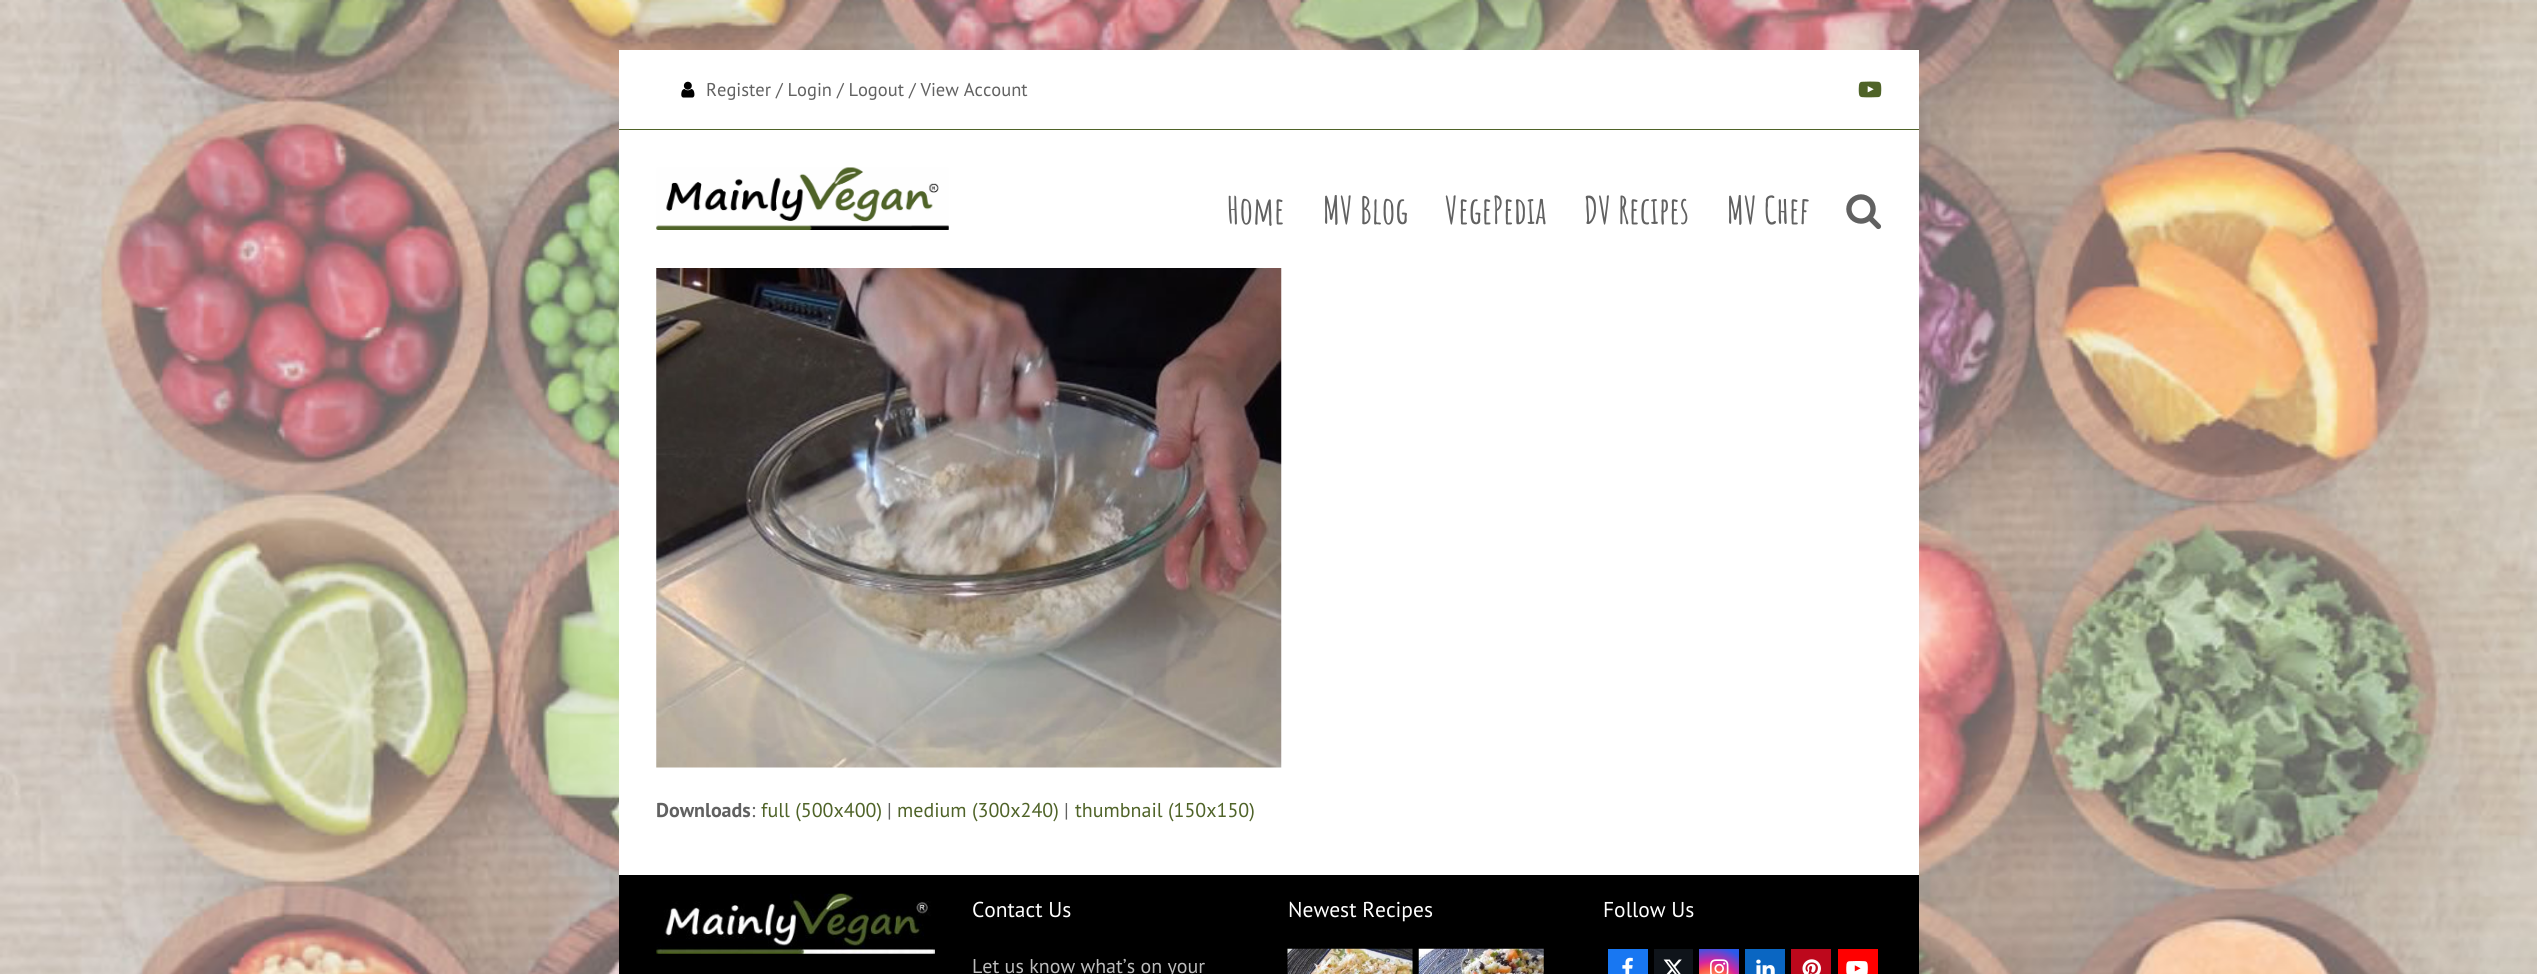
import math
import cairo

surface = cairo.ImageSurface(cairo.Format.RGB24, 2537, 974)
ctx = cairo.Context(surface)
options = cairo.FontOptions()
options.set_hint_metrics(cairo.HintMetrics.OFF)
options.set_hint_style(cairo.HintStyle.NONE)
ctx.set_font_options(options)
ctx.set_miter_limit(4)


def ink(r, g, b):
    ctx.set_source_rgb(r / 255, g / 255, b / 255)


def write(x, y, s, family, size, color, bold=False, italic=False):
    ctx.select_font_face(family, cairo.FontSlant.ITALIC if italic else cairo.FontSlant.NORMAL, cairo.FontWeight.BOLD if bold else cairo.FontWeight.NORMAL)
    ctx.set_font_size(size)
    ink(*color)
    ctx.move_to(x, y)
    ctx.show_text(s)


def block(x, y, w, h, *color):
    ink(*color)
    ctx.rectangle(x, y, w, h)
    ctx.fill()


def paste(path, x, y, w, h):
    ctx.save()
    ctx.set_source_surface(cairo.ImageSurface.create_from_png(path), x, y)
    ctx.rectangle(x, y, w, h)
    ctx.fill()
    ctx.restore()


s1 = dict(family="PT Sans", size=18.5, color=(97, 97, 97))
s2 = dict(family="Amatic SC", size=37.5, color=(97, 97, 97), bold=True)
s3 = dict(family="PT Sans", size=20, color=(97, 97, 97), bold=True)
s4 = dict(family="PT Sans", size=20, color=(97, 97, 97))
s5 = dict(family="PT Sans", size=20, color=(79, 99, 40))
s6 = dict(family="PT Sans", size=21.5, color=(255, 255, 255))
s7 = dict(family="PT Sans", size=20, color=(189, 189, 189))

ink(255, 255, 255)
ctx.paint()
paste("pic1.png", 0, 0, 2537, 974)
block(619, 50, 1300, 825, 255, 255, 255)
block(619, 129, 1300, 1, 79, 99, 40)
paste("pic2.png", 681, 81, 14, 17)
write(706, 96, "Register / Login / Logout / View Account", **s1)
paste("pic3.png", 1858, 81, 24, 17)
paste("pic4.png", 656, 167, 293, 63)
write(1227, 224, "Home", **s2)
write(1323, 224, "MV Blog", **s2)
write(1445, 224, "VegePedia", **s2)
write(1584, 224, "DV Recipes", **s2)
write(1727, 224, "MV Chef", **s2)
paste("pic5.png", 1846, 194, 36, 36)
paste("pic6.png", 656, 268, 626, 500)
write(656, 817, "Downloads", **s3)
write(751, 817, ":", **s4)
write(761, 817, "full (500x400)", **s5)
write(887, 817, "|", **s4)
write(897, 817, "medium (300x240)", **s5)
write(1064, 817, "|", **s4)
write(1075, 817, "thumbnail (150x150)", **s5)
block(619, 875, 1300, 99, 0, 0, 0)
paste("pic7.png", 656, 893, 279, 61)
write(972, 917, "Contact Us", **s6)
write(972, 973, "Let us know what’s on your", **s7)
write(1288, 917, "Newest Recipes", **s6)
paste("pic8.png", 1287, 948, 126, 26)
paste("pic9.png", 1418, 948, 126, 26)
write(1603, 917, "Follow Us", **s6)
block(1608, 949, 40, 25, 24, 119, 242)
paste("pic10.png", 1622, 957, 11, 17)
block(1654, 949, 39, 25, 15, 20, 26)
paste("pic11.png", 1663, 959, 19, 15)
gradient = cairo.RadialGradient(1711, 992, 0, 1711, 992, 51)
gradient.add_color_stop_rgba(0, 0.992, 0.957, 0.592, 1)
gradient.add_color_stop_rgba(0.05, 0.992, 0.957, 0.592, 1)
gradient.add_color_stop_rgba(0.45, 0.992, 0.349, 0.286, 1)
gradient.add_color_stop_rgba(0.6, 0.839, 0.141, 0.624, 1)
gradient.add_color_stop_rgba(0.9, 0.157, 0.353, 0.922, 1)
ctx.set_source(gradient)
ctx.rectangle(1699, 949, 40, 25)
ctx.fill()
paste("pic12.png", 1710, 959, 19, 15)
block(1745, 949, 40, 25, 10, 102, 194)
paste("pic13.png", 1756, 959, 19, 15)
block(1791, 949, 40, 25, 189, 8, 28)
paste("pic14.png", 1802, 959, 19, 15)
block(1838, 949, 40, 25, 255, 0, 0)
paste("pic15.png", 1846, 961, 22, 13)
surface.write_to_png("screenshot.png")
